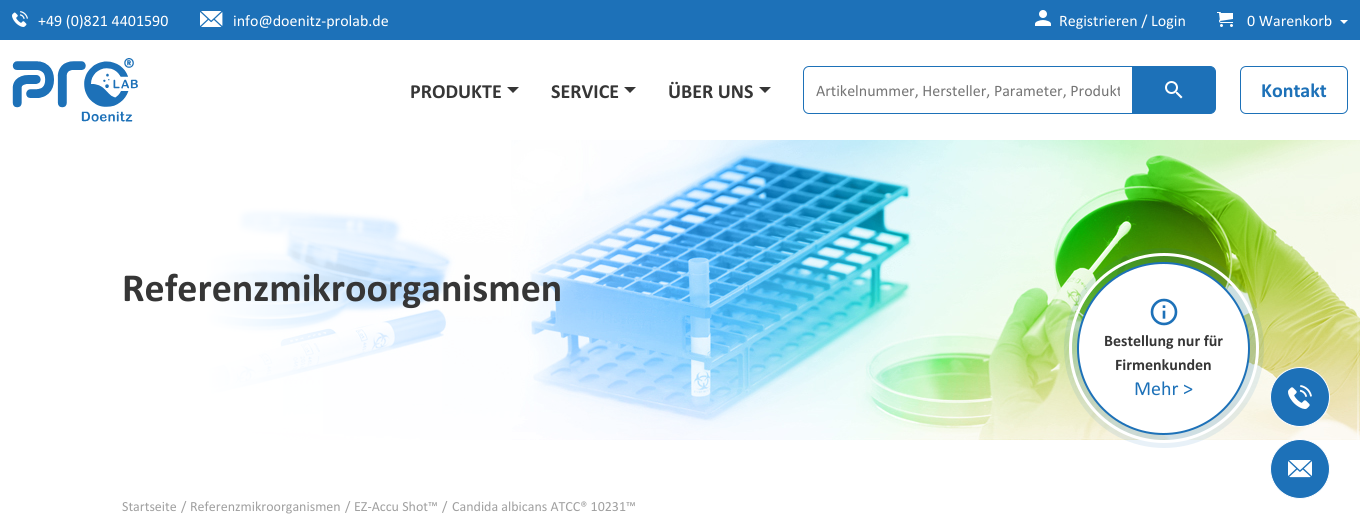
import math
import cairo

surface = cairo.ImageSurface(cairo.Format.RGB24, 1360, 529)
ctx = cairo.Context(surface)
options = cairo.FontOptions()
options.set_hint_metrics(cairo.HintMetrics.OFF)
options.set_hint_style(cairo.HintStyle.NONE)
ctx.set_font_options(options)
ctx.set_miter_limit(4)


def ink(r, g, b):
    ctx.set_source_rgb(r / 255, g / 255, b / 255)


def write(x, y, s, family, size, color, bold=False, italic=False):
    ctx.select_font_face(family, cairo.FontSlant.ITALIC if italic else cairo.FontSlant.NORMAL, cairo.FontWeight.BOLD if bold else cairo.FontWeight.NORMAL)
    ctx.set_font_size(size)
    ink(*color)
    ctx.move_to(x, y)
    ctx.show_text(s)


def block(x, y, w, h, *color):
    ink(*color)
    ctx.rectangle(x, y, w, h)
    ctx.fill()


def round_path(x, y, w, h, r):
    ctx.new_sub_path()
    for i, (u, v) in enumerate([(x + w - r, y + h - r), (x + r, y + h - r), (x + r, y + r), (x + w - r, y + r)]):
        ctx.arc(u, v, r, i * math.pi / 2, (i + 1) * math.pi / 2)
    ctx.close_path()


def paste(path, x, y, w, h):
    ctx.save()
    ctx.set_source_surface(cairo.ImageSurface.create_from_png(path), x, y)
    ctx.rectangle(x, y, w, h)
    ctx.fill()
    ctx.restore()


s1 = dict(family="Calibri", size=16, color=(255, 255, 255))
s2 = dict(family="Calibri", size=20, color=(54, 54, 54), bold=True)
s3 = dict(family="Calibri", size=16, color=(117, 117, 117))
s4 = dict(family="Calibri", size=20, color=(29, 113, 184), bold=True)
s5 = dict(family="Calibri", size=40, color=(54, 54, 54), bold=True)
s6 = dict(family="Calibri", size=16, color=(54, 54, 54), bold=True)
s7 = dict(family="Calibri", size=20, color=(29, 113, 184))
s8 = dict(family="Calibri", size=14, color=(160, 160, 160))

ink(255, 255, 255)
ctx.paint()
block(0, 0, 1360, 40, 29, 113, 184)
paste("pic1.png", 12, 11, 16, 16)
write(38, 26, "+49 (0)821 4401590", **s1)
paste("pic2.png", 200, 11, 23, 16)
write(233, 26, "info@doenitz-prolab.de", **s1)
paste("pic3.png", 1035, 10, 16, 16)
write(1059, 26, "Registrieren / Login", **s1)
paste("pic4.png", 1217, 12, 16, 15)
write(1247, 26, "0 Warenkorb", **s1)
ctx.new_path()
ctx.move_to(1340, 20)
ctx.line_to(1348, 20)
ctx.line_to(1344, 24)
ctx.close_path()
ctx.fill()
paste("pic5.png", 12, 58, 126, 64)
write(410, 98, "PRODUKTE", **s2)
ctx.new_path()
ctx.move_to(507, 87)
ctx.line_to(519, 87)
ctx.line_to(513, 93)
ctx.close_path()
ctx.fill()
write(551, 98, "SERVICE", **s2)
ctx.new_path()
ctx.move_to(624, 87)
ctx.line_to(636, 87)
ctx.line_to(630, 93)
ctx.close_path()
ctx.fill()
write(668, 98, "ÜBER UNS", **s2)
ctx.new_path()
ctx.move_to(759, 87)
ctx.line_to(771, 87)
ctx.line_to(765, 93)
ctx.close_path()
ctx.fill()
ink(29, 113, 184)
ctx.new_path()
ctx.move_to(1132.5, 66.5)
ctx.line_to(1210, 66.5)
ctx.curve_to(1213, 66.5, 1215.5, 69, 1215.5, 72)
ctx.line_to(1215.5, 108)
ctx.curve_to(1215.5, 111, 1213, 113.5, 1210, 113.5)
ctx.line_to(1132.5, 113.5)
ctx.close_path()
ctx.fill_preserve()
ctx.set_line_width(1)
ctx.stroke()
ink(255, 255, 255)
ctx.new_path()
ctx.move_to(809, 66.5)
ctx.line_to(1132.5, 66.5)
ctx.line_to(1132.5, 113.5)
ctx.line_to(809, 113.5)
ctx.curve_to(806, 113.5, 803.5, 111, 803.5, 108)
ctx.line_to(803.5, 72)
ctx.curve_to(803.5, 69, 806, 66.5, 809, 66.5)
ctx.close_path()
ctx.fill_preserve()
ink(29, 113, 184)
ctx.stroke()
ctx.save()
ctx.rectangle(816, 79, 304, 22)
ctx.clip()
write(816, 96, "Artikelnummer, Hersteller, Parameter, Produkt", **s3)
ctx.restore()
paste("pic6.png", 1165, 81, 18, 18)
round_path(1240.5, 66.5, 107, 47, 5.5)
ctx.stroke()
write(1261, 97, "Kontakt", **s4)
paste("pic7.png", 2, 140, 1358, 300)
write(122, 301, "Referenzmikroorganismen", **s5)
ctx.set_source_rgba(0.114, 0.443, 0.722, 0.1)
ctx.new_path()
ctx.arc(1164, 348, 100, 0, 2 * math.pi)
ctx.fill()
ctx.arc(1164, 348, 93.5, 0, 2 * math.pi)
ctx.fill_preserve()
ink(255, 255, 255)
ctx.set_line_width(3)
ctx.stroke()
ctx.arc(1163.5, 348.5, 85.5, 0, 2 * math.pi)
ctx.fill_preserve()
ink(29, 113, 184)
ctx.set_line_width(2)
ctx.stroke()
paste("pic8.png", 1150, 298, 28, 28)
write(1104, 346, "Bestellung nur für", **s6)
write(1115, 370, "Firmenkunden", **s6)
write(1134, 395, "Mehr >", **s7)
ctx.new_path()
ctx.arc(1300, 397, 29.5, 0, 2 * math.pi)
ctx.fill_preserve()
ink(255, 255, 255)
ctx.set_line_width(1)
ctx.stroke()
paste("pic9.png", 1288, 385, 24, 24)
ink(29, 113, 184)
ctx.arc(1300, 469, 29.5, 0, 2 * math.pi)
ctx.fill_preserve()
ink(255, 255, 255)
ctx.stroke()
paste("pic10.png", 1288, 460, 24, 18)
write(122, 511, "Startseite", **s8)
write(181, 511, "/", **s8)
write(190, 511, "Referenzmikroorganismen", **s8)
write(345, 511, "/", **s8)
write(354, 511, "EZ-Accu Shot™", **s8)
write(442, 511, "/", **s8)
write(452, 511, "Candida albicans ATCC® 10231™", **s8)
surface.write_to_png("screenshot.png")
